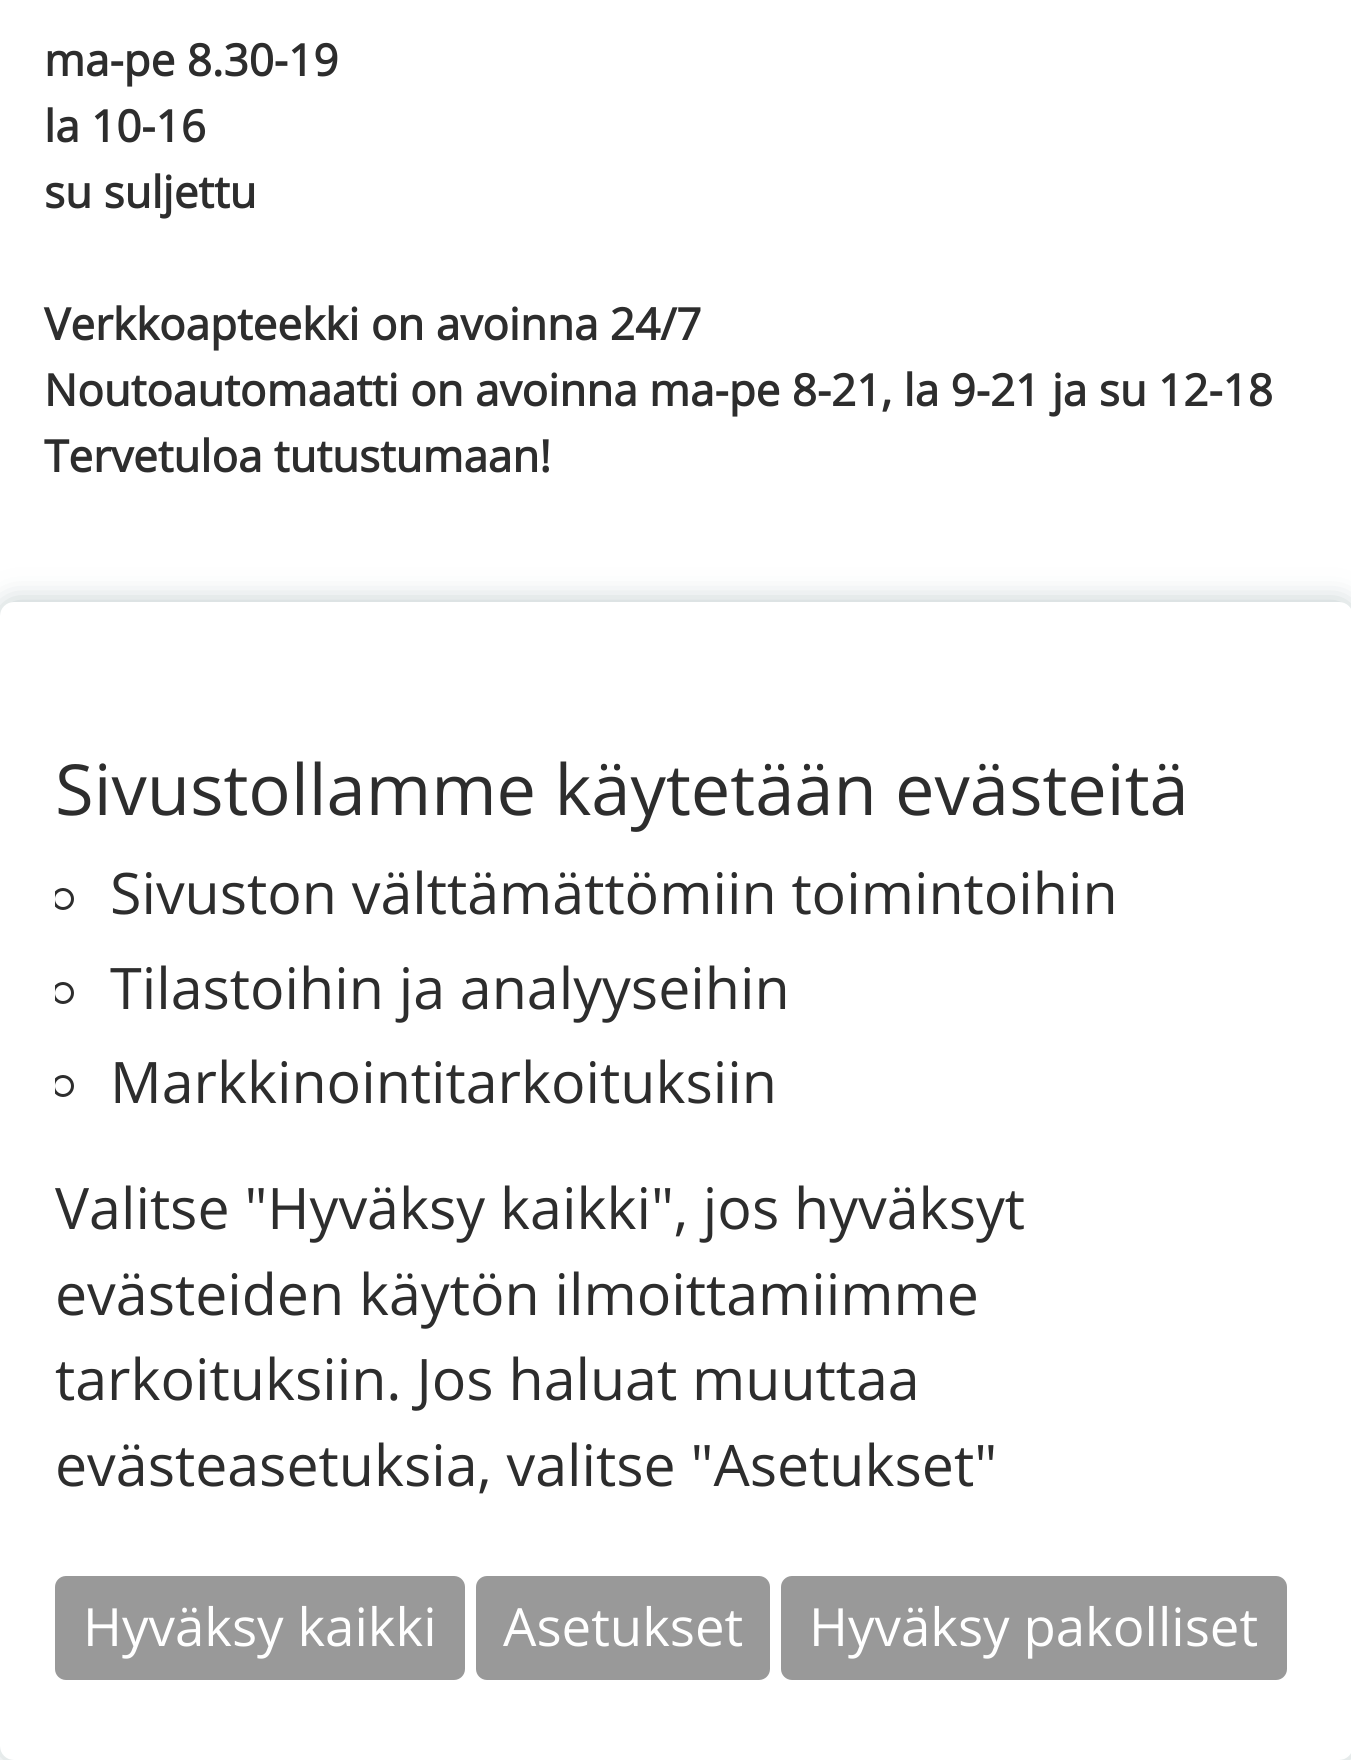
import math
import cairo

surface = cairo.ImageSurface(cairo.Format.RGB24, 1351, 1760)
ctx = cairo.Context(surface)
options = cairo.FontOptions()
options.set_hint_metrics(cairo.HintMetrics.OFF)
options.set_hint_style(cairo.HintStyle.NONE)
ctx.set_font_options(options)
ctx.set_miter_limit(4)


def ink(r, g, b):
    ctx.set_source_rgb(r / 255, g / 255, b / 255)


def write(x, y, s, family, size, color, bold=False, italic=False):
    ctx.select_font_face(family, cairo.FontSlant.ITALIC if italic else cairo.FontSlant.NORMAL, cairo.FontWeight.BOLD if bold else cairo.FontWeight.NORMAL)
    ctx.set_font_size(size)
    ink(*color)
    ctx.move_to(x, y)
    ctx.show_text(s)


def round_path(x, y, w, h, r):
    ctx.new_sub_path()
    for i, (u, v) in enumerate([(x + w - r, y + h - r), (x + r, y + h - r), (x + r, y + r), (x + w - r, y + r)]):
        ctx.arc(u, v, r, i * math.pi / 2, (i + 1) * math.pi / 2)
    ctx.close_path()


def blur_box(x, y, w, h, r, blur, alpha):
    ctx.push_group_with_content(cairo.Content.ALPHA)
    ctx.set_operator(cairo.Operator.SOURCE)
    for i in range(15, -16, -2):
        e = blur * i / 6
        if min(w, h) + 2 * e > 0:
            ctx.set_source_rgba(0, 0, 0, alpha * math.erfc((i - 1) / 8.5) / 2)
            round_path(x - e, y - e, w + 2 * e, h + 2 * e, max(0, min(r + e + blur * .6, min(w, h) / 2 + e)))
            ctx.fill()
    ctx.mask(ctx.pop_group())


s1 = dict(family="Open Sans", size=44, color=(45, 45, 45), bold=True)
s2 = dict(family="Open Sans", size=70.4, color=(45, 45, 45))
s3 = dict(family="Open Sans", size=57.25, color=(45, 45, 45))
s4 = dict(family="Open Sans", size=52.75, color=(255, 255, 255))

ink(255, 255, 255)
ctx.paint()
write(44, 76, "ma-pe 8.30-19", **s1)
write(44, 142, "la 10-16", **s1)
write(44, 208, "su suljettu", **s1)
write(44, 340, "Verkkoapteekki on avoinna 24/7", **s1)
write(44, 406, "Noutoautomaatti on avoinna ma-pe 8-21, la 9-21 ja su 12-18", **s1)
write(44, 472, "Tervetuloa tutustumaan!", **s1)
ink(84, 116, 120)
blur_box(0, 602, 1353, 1158, 14, 14, 0.4)
ink(255, 255, 255)
round_path(0, 602, 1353, 1158, 14)
ctx.fill()
write(55, 815, "Sivustollamme käytetään evästeitä", **s2)
ctx.save()
ctx.rectangle(55, 853, 1243, 723)
ctx.clip()
ctx.arc(63, 899, 9.5, 0, 2 * math.pi)
ctx.set_line_width(3)
ctx.stroke()
ctx.restore()
write(110, 914, "Sivuston välttämättömiin toimintoihin", **s3)
ctx.save()
ctx.rectangle(55, 853, 1243, 723)
ctx.clip()
ctx.arc(63, 993, 9.5, 0, 2 * math.pi)
ctx.set_line_width(3)
ctx.stroke()
ctx.restore()
write(110, 1009, "Tilastoihin ja analyyseihin", **s3)
ctx.save()
ctx.rectangle(55, 853, 1243, 723)
ctx.clip()
ctx.arc(63, 1086, 9.5, 0, 2 * math.pi)
ctx.set_line_width(3)
ctx.stroke()
ctx.restore()
write(110, 1103, "Markkinointitarkoituksiin", **s3)
write(55, 1229, "Valitse \"Hyväksy kaikki\", jos hyväksyt", **s3)
write(55, 1315, "evästeiden käytön ilmoittamiimme", **s3)
write(55, 1400, "tarkoituksiin. Jos haluat muuttaa", **s3)
write(55, 1486, "evästeasetuksia, valitse \"Asetukset\"", **s3)
ink(153, 153, 153)
round_path(55, 1576, 410, 104, 11)
ctx.fill()
write(83, 1646, "Hyväksy kaikki", **s4)
ink(153, 153, 153)
round_path(476, 1576, 294, 104, 11)
ctx.fill()
write(503, 1646, "Asetukset", **s4)
ink(153, 153, 153)
round_path(781, 1576, 506, 104, 11)
ctx.fill()
write(809, 1646, "Hyväksy pakolliset", **s4)
surface.write_to_png("screenshot.png")
